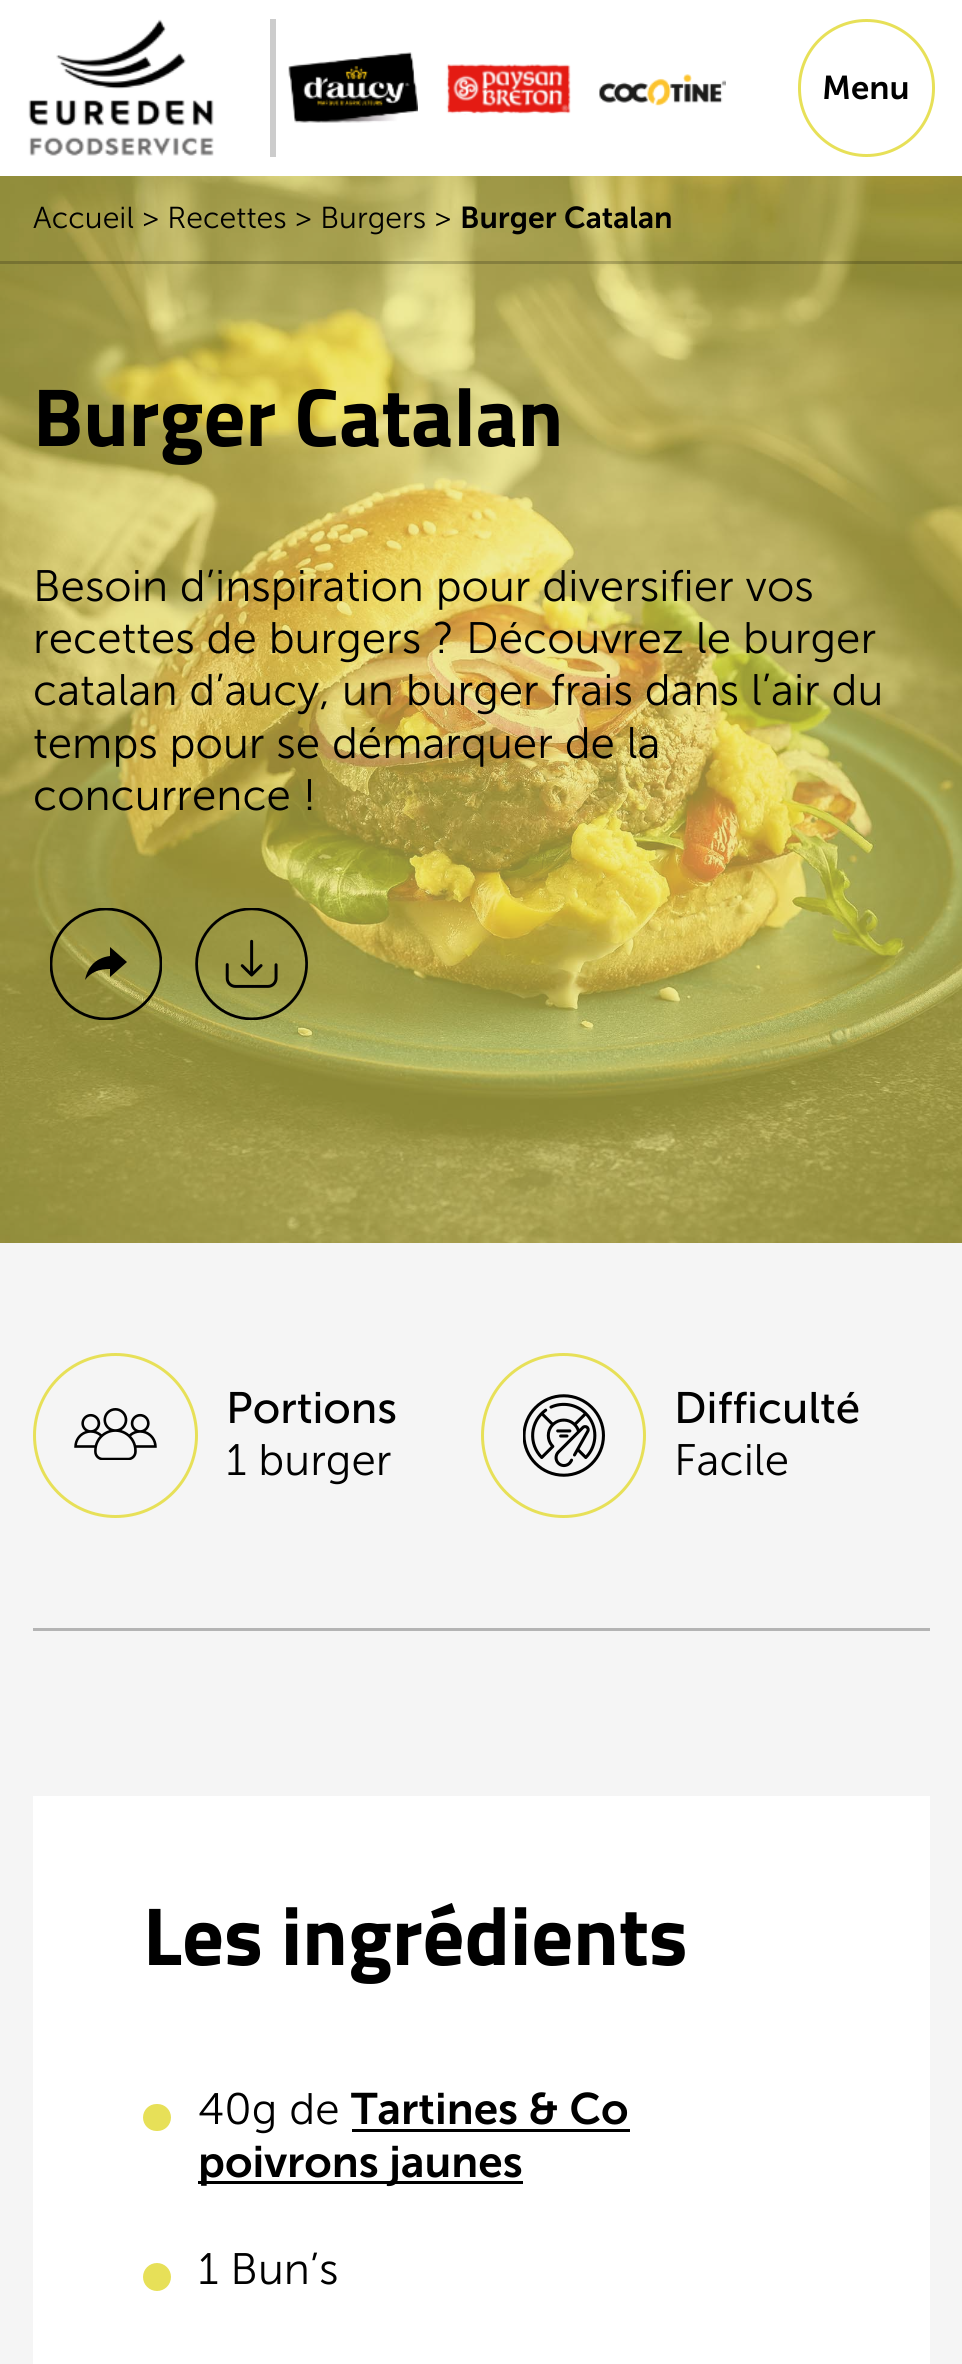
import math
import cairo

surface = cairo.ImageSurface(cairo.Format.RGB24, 962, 2364)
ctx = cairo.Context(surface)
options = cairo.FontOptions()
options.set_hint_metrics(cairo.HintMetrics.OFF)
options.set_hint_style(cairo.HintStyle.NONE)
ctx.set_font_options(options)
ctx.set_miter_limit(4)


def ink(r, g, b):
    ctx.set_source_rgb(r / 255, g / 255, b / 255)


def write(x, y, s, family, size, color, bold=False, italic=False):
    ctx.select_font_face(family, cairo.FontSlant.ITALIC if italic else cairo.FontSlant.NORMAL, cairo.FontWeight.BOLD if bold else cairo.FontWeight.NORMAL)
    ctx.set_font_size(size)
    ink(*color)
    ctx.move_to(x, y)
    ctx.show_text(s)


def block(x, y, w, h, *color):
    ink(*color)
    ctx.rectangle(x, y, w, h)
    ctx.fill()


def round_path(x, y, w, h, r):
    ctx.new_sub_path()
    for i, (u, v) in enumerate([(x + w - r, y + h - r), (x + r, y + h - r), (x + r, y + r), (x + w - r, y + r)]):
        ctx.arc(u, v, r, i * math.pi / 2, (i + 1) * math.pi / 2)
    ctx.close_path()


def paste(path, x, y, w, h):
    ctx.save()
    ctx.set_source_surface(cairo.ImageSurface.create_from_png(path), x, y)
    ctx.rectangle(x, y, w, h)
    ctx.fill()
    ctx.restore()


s1 = dict(family="Museo Sans SemiBold", size=33, color=(0, 0, 0))
s2 = dict(family="Museo Sans Light", size=30.25, color=(0, 0, 0))
s3 = dict(family="Museo Sans SemiBold", size=30.25, color=(0, 0, 0))
s4 = dict(family="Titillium", size=82.5, color=(0, 0, 0), bold=True)
s5 = dict(family="Museo Sans Light", size=44, color=(0, 0, 0))
s6 = dict(family="Museo Sans", size=44, color=(0, 0, 0))
s7 = dict(family="Museo Sans SemiBold", size=44, color=(0, 0, 0))

ink(255, 255, 255)
ctx.paint()
block(270, 19, 6, 138, 204, 204, 204)
paste("pic1.png", 28, 19, 186, 137)
paste("pic2.png", 288, 52, 130, 71)
paste("pic3.png", 446, 64, 125, 51)
paste("pic4.png", 599, 74, 127, 32)
round_path(799.5, 20.5, 134, 135, 67)
ink(231, 224, 88)
ctx.set_line_width(3)
ctx.stroke()
write(822, 99, "Menu", **s1)
paste("pic5.png", 0, 176, 962, 1067)
ctx.set_source_rgba(0, 0, 0, 0.2)
ctx.rectangle(0, 261, 962, 3)
ctx.fill()
write(33, 228, "Accueil > Recettes > Burgers >", **s2)
write(460, 228, "Burger Catalan", **s3)
write(33, 446, "Burger Catalan", **s4)
write(33, 601, "Besoin d’inspiration pour diversifier vos", **s5)
write(33, 653, "recettes de burgers ? Découvrez le burger", **s5)
write(33, 705, "catalan d’aucy, un burger frais dans l’air du", **s5)
write(33, 758, "temps pour se démarquer de la", **s5)
write(33, 810, "concurrence !", **s5)
ctx.save()
ctx.rectangle(50, 908, 112, 112)
ctx.clip()
ctx.arc(106, 964, 55, 0, 2 * math.pi)
ctx.set_line_width(2.8)
ctx.stroke()
ctx.restore()
ctx.new_path()
ctx.move_to(110, 969)
ctx.line_to(110, 977)
ctx.line_to(127, 962)
ctx.line_to(110, 947)
ctx.line_to(110, 956)
ctx.curve_to(94, 958, 87, 969, 85, 980)
ctx.curve_to(91, 972, 99, 969, 110, 969)
ctx.close_path()
ctx.fill()
paste("pic6.png", 195, 908, 113, 112)
block(0, 1243, 962, 1121, 245, 245, 245)
block(33, 1628, 897, 3, 180, 180, 180)
ctx.arc(115.5, 1435.5, 81, 0, 2 * math.pi)
ink(231, 224, 88)
ctx.stroke()
paste("pic7.png", 74, 1408, 83, 52)
write(226, 1423, "Portions", **s6)
write(226, 1475, "1 burger", **s5)
ctx.new_path()
ctx.arc(563.5, 1435.5, 81, 0, 2 * math.pi)
ink(231, 224, 88)
ctx.stroke()
paste("pic8.png", 523, 1394, 82, 83)
write(674, 1423, "Difficulté", **s6)
write(674, 1475, "Facile", **s5)
block(33, 1796, 897, 568, 255, 255, 255)
write(143, 1965, "Les ingrédients", **s4)
ink(231, 224, 88)
round_path(143, 2104, 28, 27, 13.5)
ctx.fill()
write(198, 2124, "40g de", **s5)
write(351, 2124, "Tartines & Co", **s7)
block(352, 2129, 278, 3, 0, 0, 0)
block(198, 2181, 325, 3, 0, 0, 0)
write(198, 2177, "poivrons jaunes", **s7)
ink(231, 224, 88)
ctx.new_path()
ctx.arc(157, 2277, 14, 0, 2 * math.pi)
ctx.fill()
write(198, 2284, "1 Bun’s", **s5)
surface.write_to_png("screenshot.png")
